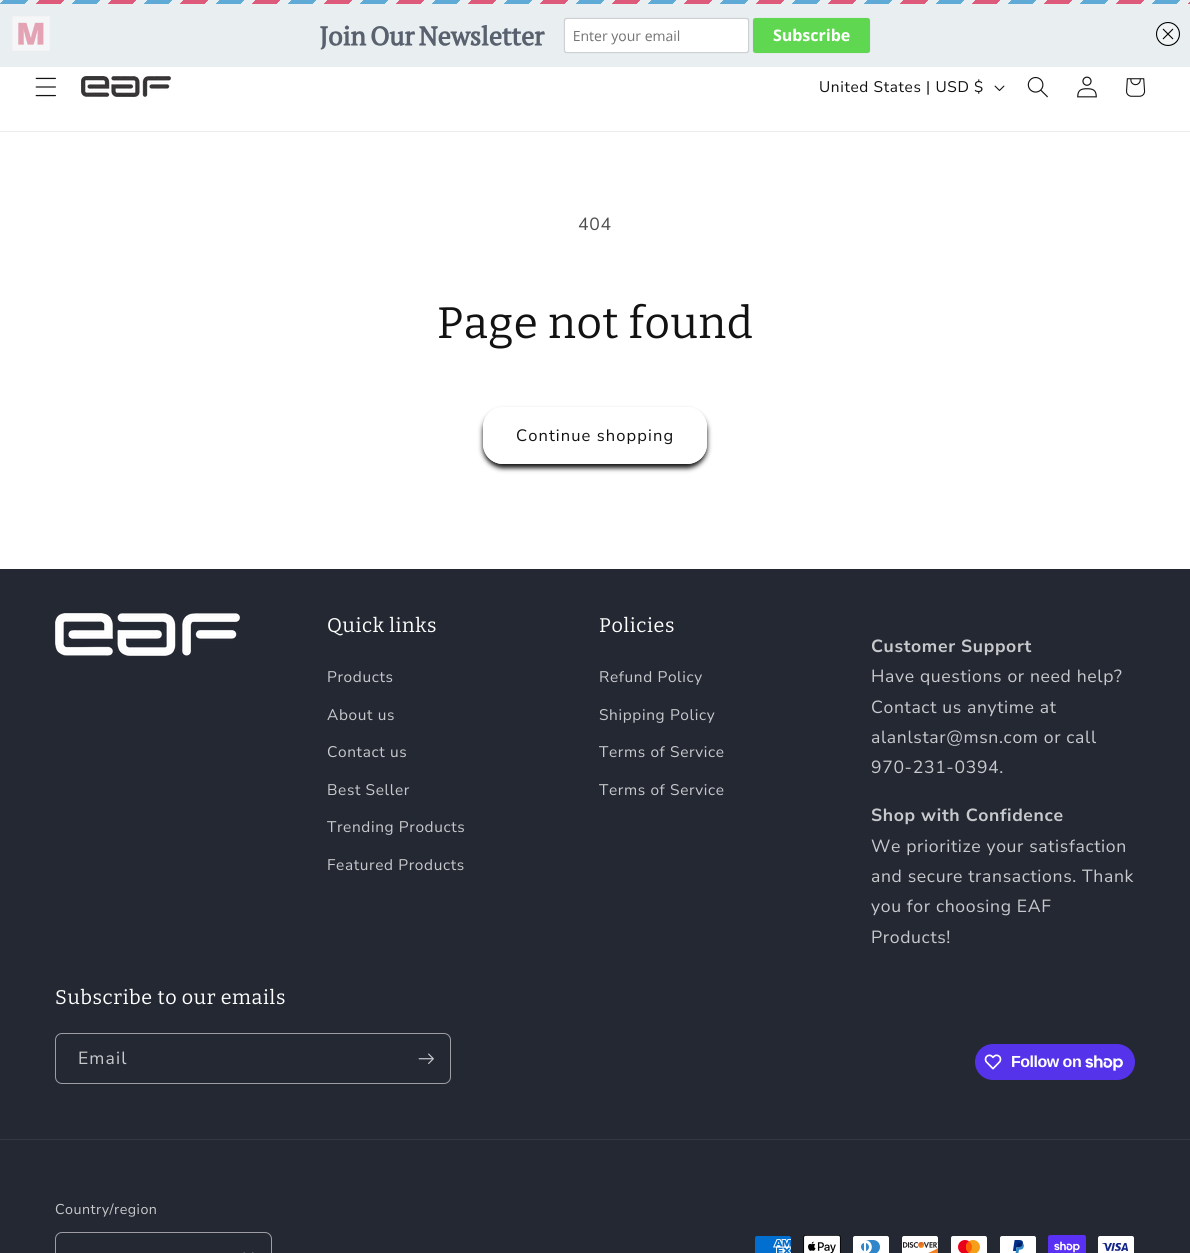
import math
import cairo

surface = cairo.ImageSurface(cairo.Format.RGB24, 1190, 1253)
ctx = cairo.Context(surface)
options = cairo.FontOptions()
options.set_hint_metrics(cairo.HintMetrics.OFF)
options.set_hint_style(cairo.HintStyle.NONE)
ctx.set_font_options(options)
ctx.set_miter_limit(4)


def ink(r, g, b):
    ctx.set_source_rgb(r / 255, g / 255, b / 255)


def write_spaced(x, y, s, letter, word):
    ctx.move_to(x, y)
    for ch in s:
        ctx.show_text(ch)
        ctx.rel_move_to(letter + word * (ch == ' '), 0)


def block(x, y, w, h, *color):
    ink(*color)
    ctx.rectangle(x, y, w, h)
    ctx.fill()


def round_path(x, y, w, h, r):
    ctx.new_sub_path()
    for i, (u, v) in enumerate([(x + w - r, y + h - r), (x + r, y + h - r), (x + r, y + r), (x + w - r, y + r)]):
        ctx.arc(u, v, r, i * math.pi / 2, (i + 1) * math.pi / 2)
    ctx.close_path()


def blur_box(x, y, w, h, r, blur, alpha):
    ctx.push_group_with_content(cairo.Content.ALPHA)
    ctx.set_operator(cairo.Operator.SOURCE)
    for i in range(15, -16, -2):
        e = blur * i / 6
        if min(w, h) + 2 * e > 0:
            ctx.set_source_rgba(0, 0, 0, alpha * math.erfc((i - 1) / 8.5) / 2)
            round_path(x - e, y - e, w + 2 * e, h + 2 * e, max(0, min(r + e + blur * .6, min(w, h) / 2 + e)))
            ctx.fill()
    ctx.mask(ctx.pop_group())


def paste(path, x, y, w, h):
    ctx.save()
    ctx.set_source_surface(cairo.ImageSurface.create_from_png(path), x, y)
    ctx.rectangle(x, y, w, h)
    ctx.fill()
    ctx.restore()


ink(255, 255, 255)
ctx.paint()
paste("pic1.png", 0, 0, 1190, 67)
block(0, 131, 1190, 1, 236, 236, 236)
paste("pic2.png", 35, 77, 21, 20)
paste("pic3.png", 81, 76, 90, 21)
ctx.select_font_face("Nunito Sans")
ctx.set_font_size(15.4)
ink(18, 18, 18)
write_spaced(819, 92, "United States | USD $", 0.65, 0)
paste("pic4.png", 994, 85, 11, 6)
paste("pic5.png", 1027, 76, 21, 22)
paste("pic6.png", 1077, 76, 20, 22)
paste("pic7.png", 1126, 78, 20, 19)
ctx.set_font_size(17.6)
ink(77, 77, 77)
write_spaced(578, 230, "404", 0.65, 0)
ctx.select_font_face("Bitter")
ctx.set_font_size(44)
ink(18, 18, 18)
write_spaced(437, 338, "Page not found", 0.65, 0)
ink(18, 18, 18)
blur_box(483, 411, 224, 57, 20, 2.5, 1)
ink(255, 255, 255)
round_path(483, 407, 224, 57, 20)
ctx.fill()
round_path(485, 409, 220, 53, 18)
ctx.set_line_width(4)
ctx.stroke()
ctx.select_font_face("Nunito Sans")
ctx.set_font_size(16.5)
ink(18, 18, 18)
write_spaced(516, 441, "Continue shopping", 1.1, 0)
block(0, 569, 1190, 684, 36, 40, 51)
paste("pic8.png", 55, 613, 185, 43)
ctx.select_font_face("Bitter")
ctx.set_font_size(19.75)
ink(255, 255, 255)
write_spaced(327, 632, "Quick links", 0.65, 0)
ctx.select_font_face("Nunito Sans")
ctx.set_font_size(15.4)
ink(200, 201, 204)
write_spaced(327, 682, "Products", 0.65, 0)
write_spaced(327, 720, "About us", 0.65, 0)
write_spaced(327, 757, "Contact us", 0.65, 0)
write_spaced(327, 795, "Best Seller", 0.65, 0)
write_spaced(327, 832, "Trending Products", 0.65, 0)
write_spaced(327, 870, "Featured Products", 0.65, 0)
ctx.select_font_face("Bitter")
ctx.set_font_size(19.75)
ink(255, 255, 255)
write_spaced(599, 632, "Policies", 0.65, 0)
ctx.select_font_face("Nunito Sans")
ctx.set_font_size(15.4)
ink(200, 201, 204)
write_spaced(599, 682, "Refund Policy", 0.65, 0)
write_spaced(599, 720, "Shipping Policy", 0.65, 0)
write_spaced(599, 757, "Terms of Service", 0.65, 0)
write_spaced(599, 795, "Terms of Service", 0.65, 0)
ctx.select_font_face("Nunito Sans", cairo.FontSlant.NORMAL, cairo.FontWeight.BOLD)
ctx.set_font_size(17.6)
write_spaced(871, 652, "Customer Support", 0.65, 0)
ctx.select_font_face("Nunito Sans")
write_spaced(871, 682, "Have questions or need help?", 0.65, 0)
write_spaced(871, 713, "Contact us anytime at", 0.65, 0)
write_spaced(871, 743, "alanlstar@msn.com or call", 0.65, 0)
write_spaced(871, 773, "970-231-0394.", 0.65, 0)
ctx.select_font_face("Nunito Sans", cairo.FontSlant.NORMAL, cairo.FontWeight.BOLD)
write_spaced(871, 821, "Shop with Confidence", 0.65, 0)
ctx.select_font_face("Nunito Sans")
write_spaced(871, 852, "We prioritize your satisfaction", 0.65, 0)
write_spaced(871, 882, "and secure transactions. Thank", 0.65, 0)
write_spaced(871, 912, "you for choosing EAF", 0.65, 0)
write_spaced(871, 943, "Products!", 0.65, 0)
ctx.select_font_face("Bitter")
ctx.set_font_size(19.75)
ink(255, 255, 255)
write_spaced(55, 1004, "Subscribe to our emails", 0.65, 0)
round_path(55.5, 1033.5, 395, 50, 6.5)
ink(156, 158, 163)
ctx.set_line_width(1)
ctx.stroke()
ctx.select_font_face("Nunito Sans")
ctx.set_font_size(17.6)
ink(200, 201, 204)
write_spaced(78, 1064, "Email", 1.1, 0)
paste("pic9.png", 418, 1053, 16, 11)
ink(84, 51, 235)
round_path(975, 1044, 160, 36, 18)
ctx.fill()
paste("pic10.png", 984, 1054, 18, 16)
ctx.select_font_face("Liberation Sans", cairo.FontSlant.NORMAL, cairo.FontWeight.BOLD)
ctx.set_font_size(16)
ink(255, 255, 255)
write_spaced(1011, 1067, "Follow on", -0.5, 0)
paste("pic11.png", 1085, 1055, 38, 16)
block(0, 1139, 1190, 1, 54, 57, 67)
ctx.select_font_face("Nunito Sans")
ctx.set_font_size(14.25)
ink(200, 201, 204)
write_spaced(55, 1214, "Country/region", 0.5, 0)
paste("pic12.png", 243, 1252, 11, 1)
round_path(55.5, 1232.5, 216, 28, 6.5)
ink(156, 158, 163)
ctx.stroke()
paste("pic13.png", 755, 1236, 36, 17)
paste("pic14.png", 803, 1235, 38, 18)
paste("pic15.png", 853, 1236, 36, 17)
paste("pic16.png", 902, 1236, 36, 17)
paste("pic17.png", 951, 1236, 36, 17)
paste("pic18.png", 1000, 1236, 36, 17)
paste("pic19.png", 1048, 1235, 38, 18)
paste("pic20.png", 1098, 1236, 36, 17)
surface.write_to_png("screenshot.png")
